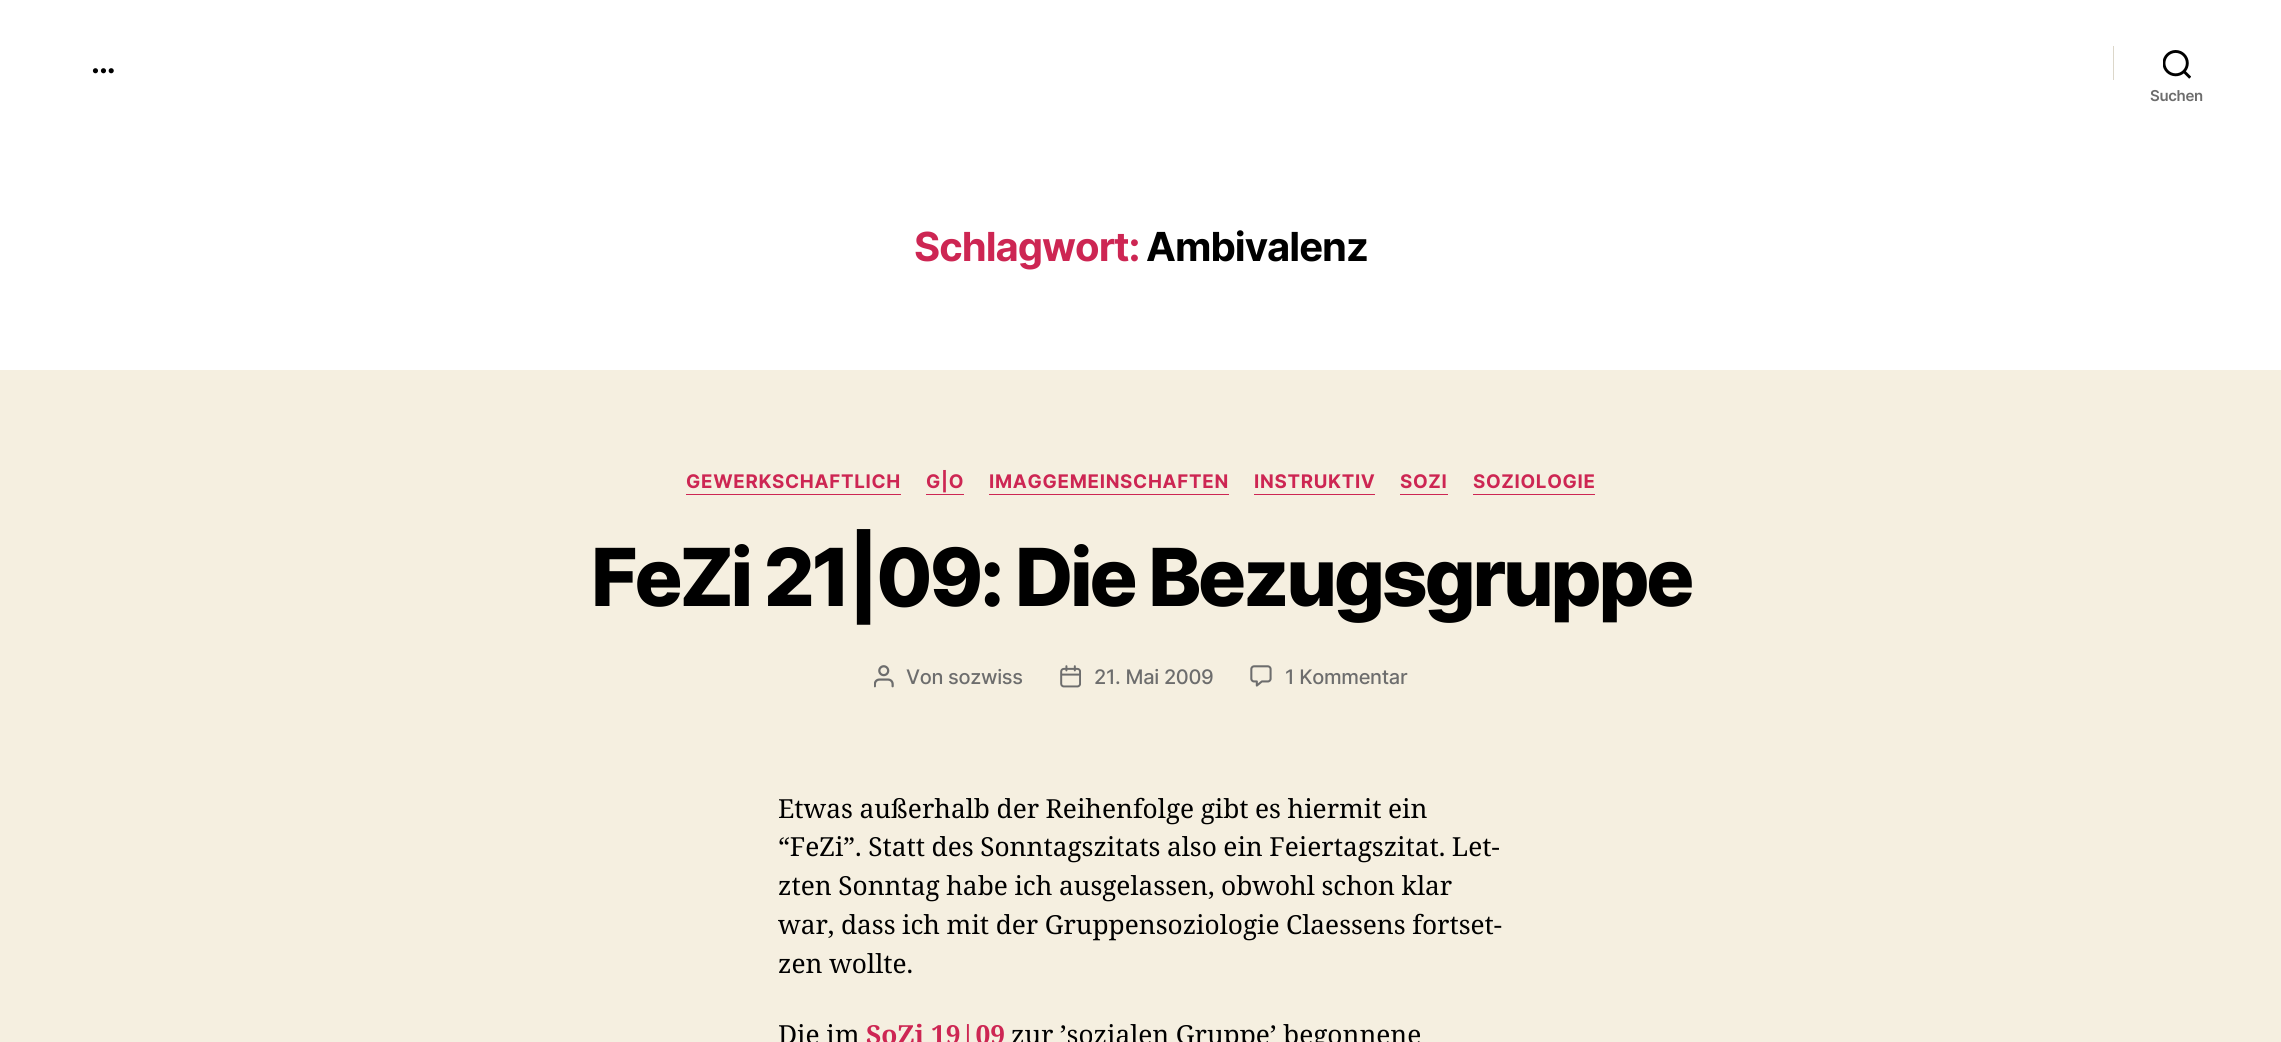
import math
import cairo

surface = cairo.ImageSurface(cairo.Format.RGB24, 2281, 1042)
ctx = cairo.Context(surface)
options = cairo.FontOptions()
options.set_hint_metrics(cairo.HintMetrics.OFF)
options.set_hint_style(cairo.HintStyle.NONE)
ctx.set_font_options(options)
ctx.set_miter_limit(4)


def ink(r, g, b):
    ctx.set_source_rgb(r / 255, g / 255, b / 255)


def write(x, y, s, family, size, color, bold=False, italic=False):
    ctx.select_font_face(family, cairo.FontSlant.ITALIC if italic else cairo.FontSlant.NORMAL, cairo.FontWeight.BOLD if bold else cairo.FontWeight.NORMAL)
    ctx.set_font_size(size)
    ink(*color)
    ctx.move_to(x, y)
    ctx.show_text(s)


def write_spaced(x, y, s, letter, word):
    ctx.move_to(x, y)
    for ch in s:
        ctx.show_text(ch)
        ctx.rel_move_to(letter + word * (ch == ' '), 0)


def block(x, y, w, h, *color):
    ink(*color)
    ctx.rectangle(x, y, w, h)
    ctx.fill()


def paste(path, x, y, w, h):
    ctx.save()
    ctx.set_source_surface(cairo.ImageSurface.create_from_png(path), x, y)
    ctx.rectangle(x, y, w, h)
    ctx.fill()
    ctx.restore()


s1 = dict(family="Noto Serif", size=26.25, color=(0, 0, 0))
s2 = dict(family="Noto Serif", size=26.25, color=(205, 38, 83), bold=True)

ink(245, 239, 224)
ctx.paint()
block(0, 0, 2281, 370, 255, 255, 255)
ctx.select_font_face("Inter", cairo.FontSlant.NORMAL, cairo.FontWeight.BOLD)
ctx.set_font_size(30)
ink(0, 0, 0)
write_spaced(91, 73, "...", -1, 0)
block(2113, 46, 1, 34, 220, 215, 202)
paste("pic1.png", 2163, 50, 28, 29)
ctx.select_font_face("Inter SemiBold")
ctx.set_font_size(15)
ink(109, 109, 109)
write_spaced(2150, 101, "Suchen", -0.3, 0)
ctx.select_font_face("Inter", cairo.FontSlant.NORMAL, cairo.FontWeight.BOLD)
ctx.set_font_size(40)
ink(205, 38, 83)
write_spaced(914, 261, "Schlagwort:", -1, 0)
ink(0, 0, 0)
write_spaced(1146, 261, "Ambivalenz", -1, 0)
block(686, 494, 215, 1, 205, 38, 83)
ctx.set_font_size(18.75)
write_spaced(686, 488, "GEWERKSCHAFTLICH", 0.7, 0)
block(926, 494, 38, 1, 205, 38, 83)
write_spaced(926, 488, "G|O", 0.7, 0)
block(989, 494, 240, 1, 205, 38, 83)
write_spaced(989, 488, "IMAGGEMEINSCHAFTEN", 0.7, 0)
block(1254, 494, 121, 1, 205, 38, 83)
write_spaced(1254, 488, "INSTRUKTIV", 0.7, 0)
block(1400, 494, 48, 1, 205, 38, 83)
write_spaced(1400, 488, "SOZI", 0.7, 0)
block(1473, 494, 122, 1, 205, 38, 83)
write_spaced(1473, 488, "SOZIOLOGIE", 0.7, 0)
ctx.select_font_face("Inter ExtraBold")
ctx.set_font_size(80)
ink(0, 0, 0)
write_spaced(591, 606, "FeZi 21|09: Die Bezugsgruppe", -3.3, 0)
paste("pic2.png", 874, 665, 20, 23)
ctx.select_font_face("Inter Medium")
ctx.set_font_size(20)
ink(109, 109, 109)
write_spaced(906, 684, "Von sozwiss", -0.3, 0)
paste("pic3.png", 1060, 665, 21, 23)
write_spaced(1094, 684, "21. Mai 2009", -0.3, 0)
paste("pic4.png", 1250, 665, 22, 22)
write_spaced(1285, 684, "1 Kommentar", -0.3, 0)
ctx.select_font_face("Noto Serif")
ctx.set_font_size(26.25)
ink(0, 0, 0)
write_spaced(778, 818, "Etwas außerhalb der Reihenfolge gibt es hiermit ein", 0, -0.25)
write_spaced(778, 856, "“FeZi”. Statt des Sonntagszitats also ein Feiertagszitat. Let-", 0, -0.25)
write_spaced(778, 895, "zten Sonntag habe ich ausgelassen, obwohl schon klar", 0, -0.25)
write_spaced(778, 934, "war, dass ich mit der Gruppensoziologie Claessens fortset-", 0, -0.25)
write(778, 973, "zen wollte.", **s1)
write(778, 1044, "Die im", **s1)
write(866, 1044, "SoZi 19|09", **s2)
ctx.select_font_face("Noto Serif")
ink(0, 0, 0)
write_spaced(1011, 1044, "zur ’sozialen Gruppe’ begonnene", 0, -0.25)
surface.write_to_png("screenshot.png")
